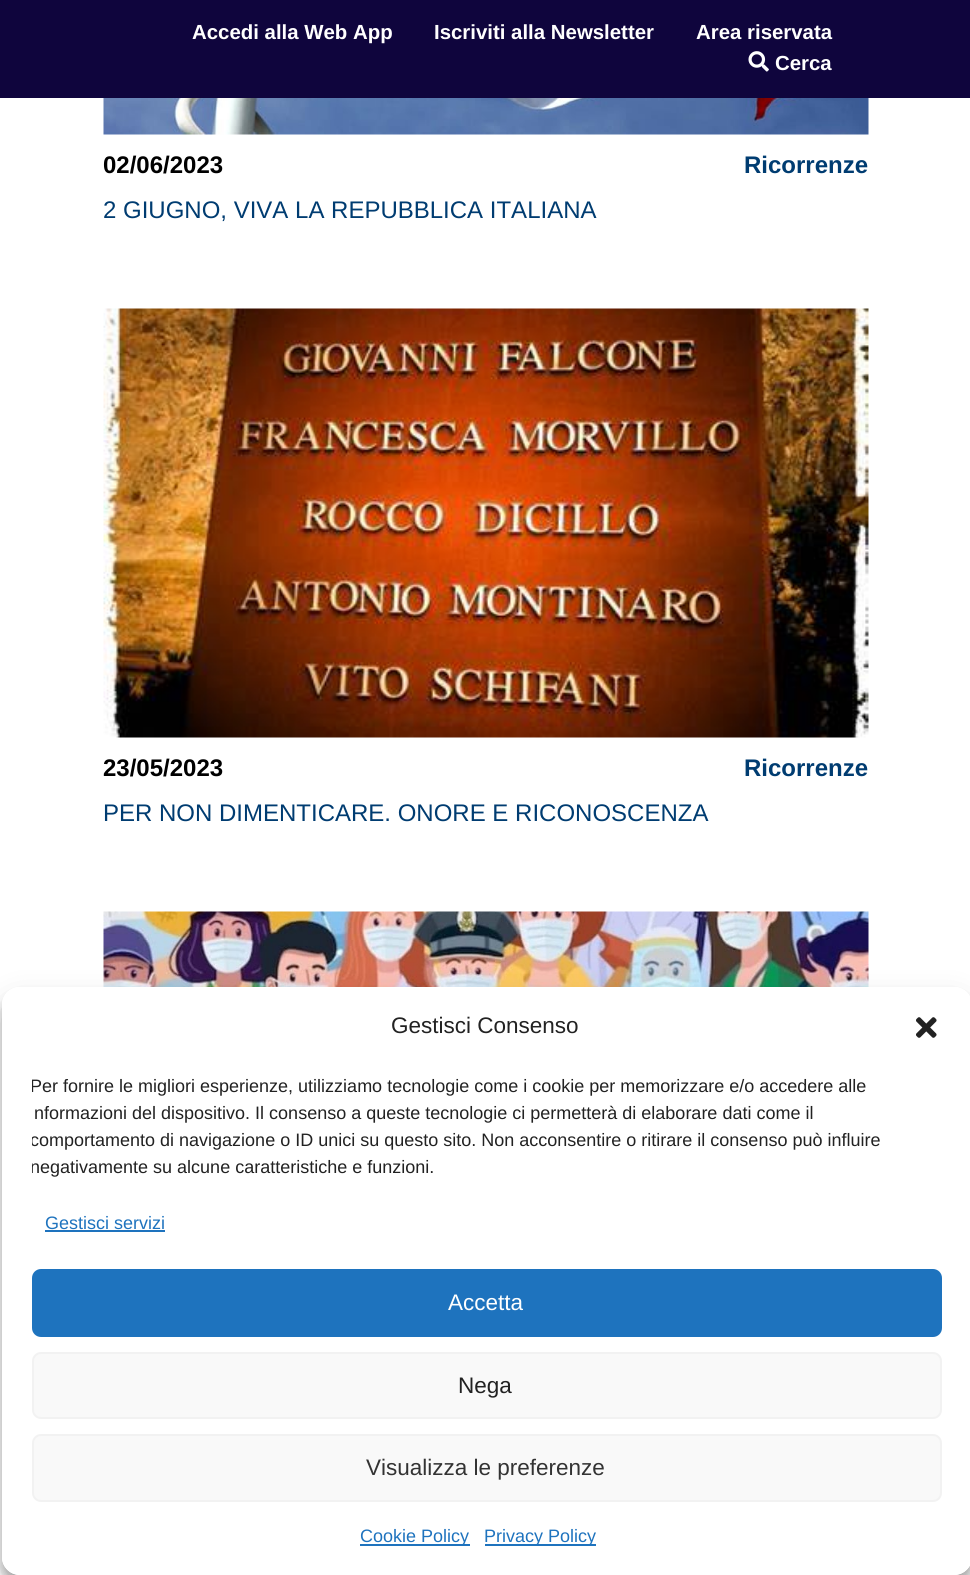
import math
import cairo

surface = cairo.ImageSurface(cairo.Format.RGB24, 970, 1575)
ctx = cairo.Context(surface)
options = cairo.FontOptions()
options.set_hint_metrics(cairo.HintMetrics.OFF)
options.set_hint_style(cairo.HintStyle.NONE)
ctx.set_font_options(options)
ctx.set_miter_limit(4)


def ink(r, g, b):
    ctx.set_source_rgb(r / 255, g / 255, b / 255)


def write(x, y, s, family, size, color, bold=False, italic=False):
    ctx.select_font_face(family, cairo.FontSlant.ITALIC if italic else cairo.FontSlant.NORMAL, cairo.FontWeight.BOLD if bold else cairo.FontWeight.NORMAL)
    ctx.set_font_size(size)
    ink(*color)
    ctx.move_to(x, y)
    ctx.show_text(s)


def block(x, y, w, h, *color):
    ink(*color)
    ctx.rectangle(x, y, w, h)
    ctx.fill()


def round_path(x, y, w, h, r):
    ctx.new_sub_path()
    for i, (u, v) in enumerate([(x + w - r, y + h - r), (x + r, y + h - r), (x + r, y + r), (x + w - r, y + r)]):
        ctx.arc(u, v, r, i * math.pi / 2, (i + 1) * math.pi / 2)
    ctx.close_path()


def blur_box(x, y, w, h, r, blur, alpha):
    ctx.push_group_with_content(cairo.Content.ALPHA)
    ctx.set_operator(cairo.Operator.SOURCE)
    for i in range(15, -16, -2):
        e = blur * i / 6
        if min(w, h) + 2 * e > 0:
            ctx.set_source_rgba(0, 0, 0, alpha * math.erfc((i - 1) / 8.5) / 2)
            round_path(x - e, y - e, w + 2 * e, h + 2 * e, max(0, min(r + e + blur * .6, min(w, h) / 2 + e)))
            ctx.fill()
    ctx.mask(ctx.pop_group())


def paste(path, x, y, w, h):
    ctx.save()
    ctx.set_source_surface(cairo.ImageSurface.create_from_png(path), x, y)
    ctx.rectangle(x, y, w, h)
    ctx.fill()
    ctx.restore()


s1 = dict(family="Liberation Sans", size=20.4, color=(255, 255, 255), bold=True)
s2 = dict(family="Liberation Sans", size=24, color=(0, 0, 0), bold=True)
s3 = dict(family="Liberation Sans", size=24, color=(0, 60, 113), bold=True)
s4 = dict(family="Liberation Sans", size=24, color=(0, 60, 113))
s5 = dict(family="Liberation Sans", size=22.5, color=(34, 34, 34))
s6 = dict(family="Liberation Sans", size=18, color=(34, 34, 34))
s7 = dict(family="Liberation Sans", size=18, color=(30, 115, 190))
s8 = dict(family="Liberation Sans", size=22.5, color=(255, 255, 255))
s9 = dict(family="Liberation Sans", size=22.5, color=(51, 51, 51))

ink(255, 255, 255)
ctx.paint()
block(0, 0, 970, 98, 15, 5, 61)
write(192, 39, "Accedi alla Web App", **s1)
write(434, 39, "Iscriviti alla Newsletter", **s1)
write(696, 39, "Area riservata", **s1)
paste("pic1.png", 748, 51, 21, 21)
write(775, 70, "Cerca", **s1)
paste("pic2.png", 103, 98, 766, 37)
write(103, 173, "02/06/2023", **s2)
write(744, 173, "Ricorrenze", **s3)
write(103, 218, "2 GIUGNO, VIVA LA REPUBBLICA ITALIANA", **s4)
paste("pic3.png", 103, 308, 766, 430)
write(103, 776, "23/05/2023", **s2)
write(744, 776, "Ricorrenze", **s3)
write(103, 821, "PER NON DIMENTICARE. ONORE E RICONOSCENZA", **s4)
paste("pic4.png", 103, 911, 766, 76)
ctx.save()
ctx.set_fill_rule(cairo.FillRule.EVEN_ODD)
ctx.new_path()
ctx.move_to(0, 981)
ctx.line_to(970, 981)
ctx.line_to(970, 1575)
ctx.line_to(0, 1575)
ctx.close_path()
ctx.move_to(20, 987)
ctx.line_to(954, 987)
ctx.curve_to(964, 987, 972, 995, 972, 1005)
ctx.line_to(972, 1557)
ctx.curve_to(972, 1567, 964, 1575, 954, 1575)
ctx.line_to(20, 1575)
ctx.curve_to(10, 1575, 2, 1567, 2, 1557)
ctx.line_to(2, 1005)
ctx.curve_to(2, 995, 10, 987, 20, 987)
ctx.close_path()
ctx.clip()
ink(0, 0, 0)
blur_box(2, 996, 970, 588, 18, 4.5, 0.23)
ctx.restore()
ctx.save()
ctx.set_fill_rule(cairo.FillRule.EVEN_ODD)
ctx.new_path()
ctx.move_to(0, 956)
ctx.line_to(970, 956)
ctx.line_to(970, 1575)
ctx.line_to(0, 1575)
ctx.close_path()
ctx.move_to(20, 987)
ctx.line_to(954, 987)
ctx.curve_to(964, 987, 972, 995, 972, 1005)
ctx.line_to(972, 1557)
ctx.curve_to(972, 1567, 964, 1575, 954, 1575)
ctx.line_to(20, 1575)
ctx.curve_to(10, 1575, 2, 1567, 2, 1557)
ctx.line_to(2, 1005)
ctx.curve_to(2, 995, 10, 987, 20, 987)
ctx.close_path()
ctx.clip()
ink(0, 0, 0)
blur_box(2, 1002, 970, 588, 18, 15, 0.19)
ctx.restore()
ink(255, 255, 255)
round_path(2, 987, 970, 588, 18)
ctx.fill()
write(391, 1033, "Gestisci Consenso", **s5)
paste("pic5.png", 916, 1017, 21, 21)
ctx.save()
ctx.rectangle(32, 1073, 910, 115)
ctx.clip()
write(30, 1092, "Per fornire le migliori esperienze, utilizziamo tecnologie come i cookie per memorizzare e/o accedere alle", **s6)
ctx.restore()
write(34, 1119, "nformazioni del dispositivo. Il consenso a queste tecnologie ci permetterà di elaborare dati come il", **s6)
ctx.save()
ctx.rectangle(32, 1073, 910, 115)
ctx.clip()
write(30, 1146, "comportamento di navigazione o ID unici su questo sito. Non acconsentire o ritirare il consenso può influire", **s6)
write(30, 1173, "negativamente su alcune caratteristiche e funzioni.", **s6)
ctx.restore()
write(45, 1229, "Gestisci servizi", **s7)
block(45, 1230, 120, 2, 30, 115, 190)
round_path(33, 1270, 908, 66, 8)
ctx.fill_preserve()
ctx.stroke()
write(448, 1310, "Accetta", **s8)
ink(249, 249, 249)
round_path(33, 1353, 908, 65, 8)
ctx.fill_preserve()
ink(242, 242, 242)
ctx.stroke()
write(458, 1393, "Nega", **s5)
ink(249, 249, 249)
round_path(33, 1435, 908, 66, 8)
ctx.fill_preserve()
ink(242, 242, 242)
ctx.stroke()
write(366, 1475, "Visualizza le preferenze", **s9)
block(360, 1544, 110, 2, 30, 115, 190)
write(360, 1542, "Cookie Policy", **s7)
block(485, 1544, 111, 2, 30, 115, 190)
write(484, 1542, "Privacy Policy", **s7)
surface.write_to_png("screenshot.png")
